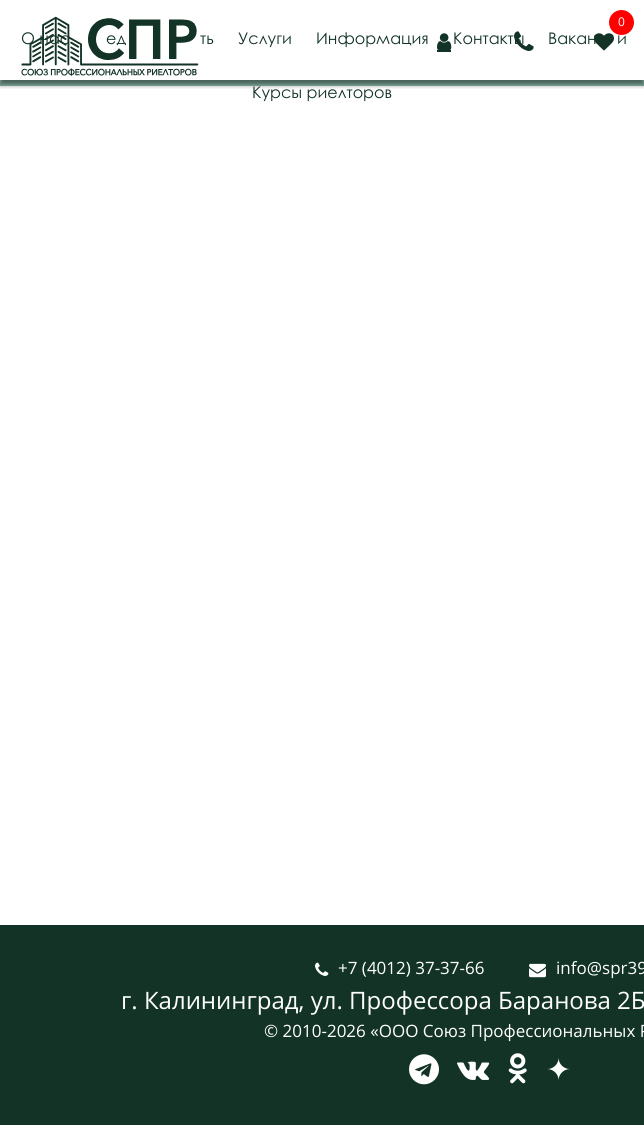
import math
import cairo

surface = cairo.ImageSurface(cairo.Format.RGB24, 644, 1125)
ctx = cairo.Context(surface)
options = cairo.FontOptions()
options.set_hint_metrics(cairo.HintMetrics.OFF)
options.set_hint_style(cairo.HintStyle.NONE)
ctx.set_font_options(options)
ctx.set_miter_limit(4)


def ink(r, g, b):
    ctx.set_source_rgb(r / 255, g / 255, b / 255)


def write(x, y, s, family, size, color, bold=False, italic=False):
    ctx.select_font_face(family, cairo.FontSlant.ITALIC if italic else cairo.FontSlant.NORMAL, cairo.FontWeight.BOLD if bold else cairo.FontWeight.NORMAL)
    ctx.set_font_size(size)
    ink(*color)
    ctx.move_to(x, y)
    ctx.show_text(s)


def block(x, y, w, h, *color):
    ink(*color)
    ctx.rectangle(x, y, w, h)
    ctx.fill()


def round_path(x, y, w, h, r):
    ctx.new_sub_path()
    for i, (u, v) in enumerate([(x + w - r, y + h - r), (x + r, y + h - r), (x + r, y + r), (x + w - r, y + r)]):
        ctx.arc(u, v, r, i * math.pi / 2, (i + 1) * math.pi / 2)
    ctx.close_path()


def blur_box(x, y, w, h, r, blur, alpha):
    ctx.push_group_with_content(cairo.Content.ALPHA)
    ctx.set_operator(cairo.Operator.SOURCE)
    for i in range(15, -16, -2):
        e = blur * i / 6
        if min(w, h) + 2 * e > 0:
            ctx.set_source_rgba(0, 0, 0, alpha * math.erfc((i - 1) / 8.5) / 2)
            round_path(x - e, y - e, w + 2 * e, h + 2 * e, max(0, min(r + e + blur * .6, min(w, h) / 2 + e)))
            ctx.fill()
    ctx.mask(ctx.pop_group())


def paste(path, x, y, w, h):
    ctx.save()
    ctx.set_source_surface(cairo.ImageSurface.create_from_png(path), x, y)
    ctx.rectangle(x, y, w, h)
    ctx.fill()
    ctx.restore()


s1 = dict(family="Century Gothic", size=16, color=(18, 51, 37))
s2 = dict(family="Open Sans", size=12, color=(255, 255, 255))
s3 = dict(family="Open Sans", size=17, color=(255, 255, 255))
s4 = dict(family="Open Sans", size=24, color=(255, 255, 255))
s5 = dict(family="DejaVu Sans", size=30, color=(255, 255, 255))

ink(255, 255, 255)
ctx.paint()
block(0, 80, 644, 6, 144, 192, 176)
ctx.save()
ctx.rectangle(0, 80, 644, 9)
ctx.clip()
ink(0, 0, 0)
blur_box(0, 5, 644, 80, 0, 2.5, 0.5)
ctx.restore()
write(21, 44, "О нас", **s1)
write(106, 44, "ед", **s1)
paste("pic1.png", 21, 16, 178, 60)
write(548, 44, "Вакан", **s1)
paste("pic2.png", 594, 33, 20, 18)
ink(255, 0, 0)
ctx.arc(621.5, 22.5, 12.5, 0, 2 * math.pi)
ctx.fill()
write(618, 26, "0", **s2)
write(453, 44, "Контакты", **s1)
paste("pic3.png", 514, 31, 20, 20)
write(200, 44, "ть", **s1)
write(238, 44, "Услуги", **s1)
write(316, 44, "Информация", **s1)
write(617, 44, "и", **s1)
write(252, 98, "Курсы риелторов", **s1)
paste("pic4.png", 437, 33, 15, 17)
block(437, 50, 14, 2, 18, 51, 37)
block(0, 925, 644, 200, 18, 51, 37)
paste("pic5.png", 315, 962, 14, 14)
write(338, 974, "+7 (4012) 37-37-66", **s3)
paste("pic6.png", 529, 963, 17, 15)
write(556, 974, "info@spr39", **s3)
write(121, 1009, "г. Калининград, ул. Профессора Баранова 2Б", **s4)
write(264, 1037, "© 2010-2026 «ООО Союз Профессиональных Р", **s3)
paste("pic7.png", 409, 1054, 30, 31)
paste("pic8.png", 457, 1061, 33, 19)
paste("pic9.png", 508, 1053, 19, 31)
write(546, 1080, "✦", **s5)
surface.write_to_png("screenshot.png")
